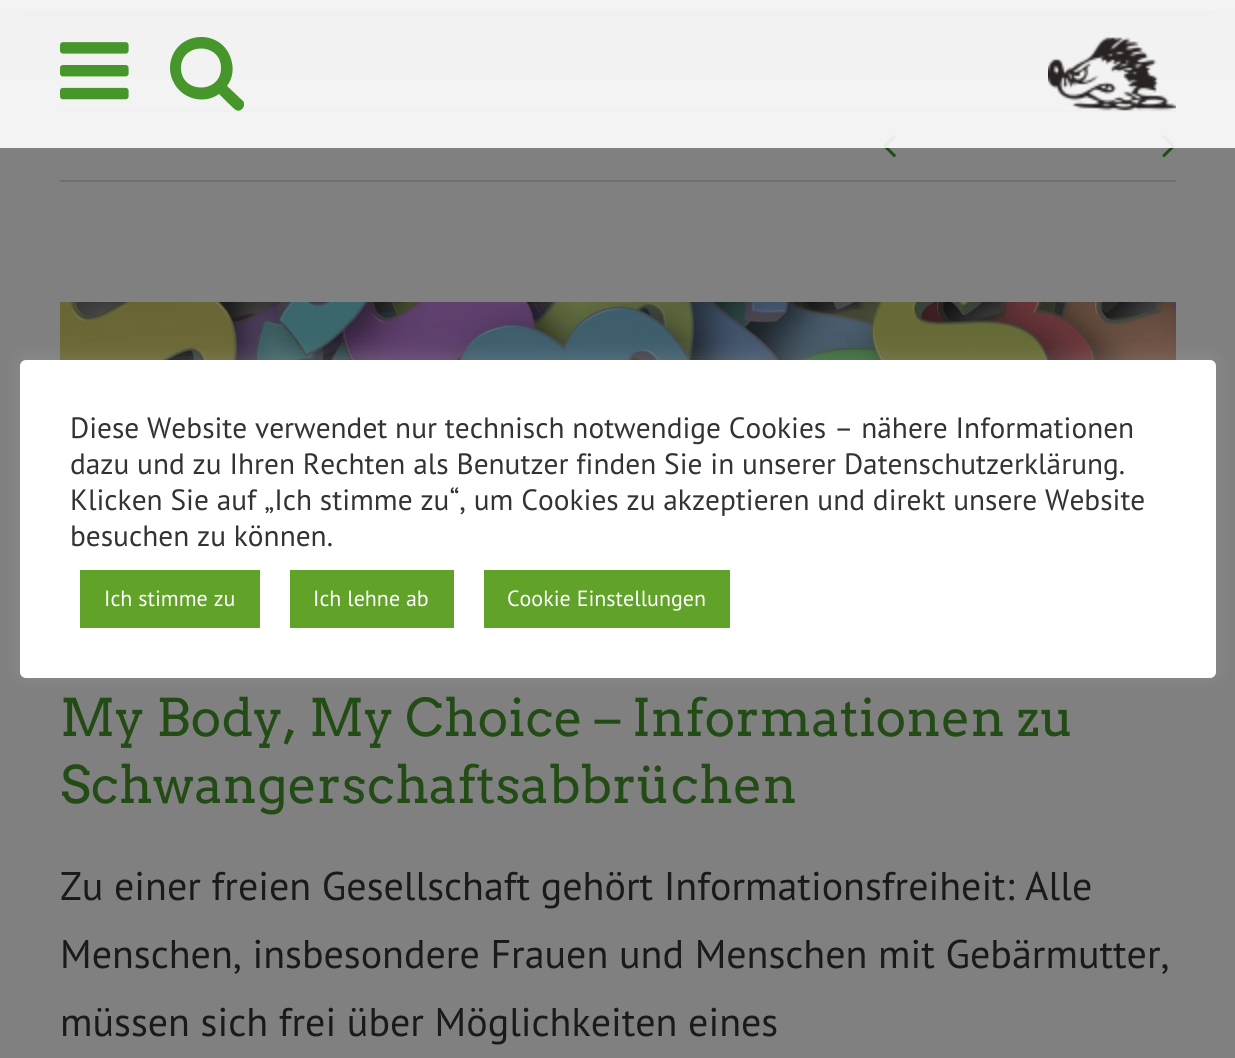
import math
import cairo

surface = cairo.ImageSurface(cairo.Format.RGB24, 1235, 1058)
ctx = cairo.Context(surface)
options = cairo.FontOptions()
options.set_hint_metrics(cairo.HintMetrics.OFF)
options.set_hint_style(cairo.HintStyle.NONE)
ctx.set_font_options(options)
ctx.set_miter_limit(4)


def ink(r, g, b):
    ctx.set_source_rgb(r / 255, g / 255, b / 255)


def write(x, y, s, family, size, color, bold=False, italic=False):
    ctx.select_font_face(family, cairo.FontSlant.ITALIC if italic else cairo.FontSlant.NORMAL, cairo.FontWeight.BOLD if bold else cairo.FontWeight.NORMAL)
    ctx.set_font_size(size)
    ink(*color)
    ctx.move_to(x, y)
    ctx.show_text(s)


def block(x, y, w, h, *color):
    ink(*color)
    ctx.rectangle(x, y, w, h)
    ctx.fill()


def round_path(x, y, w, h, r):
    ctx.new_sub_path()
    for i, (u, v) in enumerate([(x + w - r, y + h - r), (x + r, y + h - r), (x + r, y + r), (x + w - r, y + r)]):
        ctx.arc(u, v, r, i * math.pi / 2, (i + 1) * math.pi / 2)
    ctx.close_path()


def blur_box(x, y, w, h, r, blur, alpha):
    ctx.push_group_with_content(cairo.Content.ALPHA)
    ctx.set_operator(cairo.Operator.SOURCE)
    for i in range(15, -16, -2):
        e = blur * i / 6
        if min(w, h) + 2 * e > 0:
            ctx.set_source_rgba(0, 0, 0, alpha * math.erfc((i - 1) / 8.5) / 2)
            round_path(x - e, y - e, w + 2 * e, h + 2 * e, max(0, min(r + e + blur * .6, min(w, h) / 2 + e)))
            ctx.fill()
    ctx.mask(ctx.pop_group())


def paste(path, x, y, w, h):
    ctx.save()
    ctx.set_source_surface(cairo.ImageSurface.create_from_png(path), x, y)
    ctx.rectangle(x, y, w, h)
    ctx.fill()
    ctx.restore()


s1 = dict(family="PT Sans", size=29.35, color=(51, 51, 51))
s2 = dict(family="PT Sans", size=22, color=(255, 255, 255))
s3 = dict(family="Arvo", size=51.75, color=(35, 75, 22))
s4 = dict(family="PT Sans", size=40, color=(26, 26, 26))

ink(128, 128, 128)
ctx.paint()
paste("pic5.png", 60, 302, 1116, 58)
ink(172, 171, 171)
blur_box(20, 358, 1196, 318, 6, 10, 0.3)
ink(255, 255, 255)
round_path(20, 360, 1196, 318, 6)
ctx.fill()
write(70, 438, "Diese Website verwendet nur technisch notwendige Cookies – nähere Informationen", **s1)
write(70, 474, "dazu und zu Ihren Rechten als Benutzer finden Sie in unserer Datenschutzerklärung.", **s1)
write(70, 510, "Klicken Sie auf „Ich stimme zu“, um Cookies zu akzeptieren und direkt unsere Website", **s1)
write(70, 546, "besuchen zu können.", **s1)
block(80, 570, 180, 58, 97, 162, 41)
write(104, 606, "Ich stimme zu", **s2)
block(290, 570, 164, 58, 97, 162, 41)
write(313, 606, "Ich lehne ab", **s2)
block(484, 570, 246, 58, 97, 162, 41)
write(507, 606, "Cookie Einstellungen", **s2)
block(60, 110, 1116, 2, 112, 111, 111)
paste("pic3.png", 883, 135, 13, 23)
paste("pic4.png", 1162, 135, 14, 23)
ctx.save()
ctx.rectangle(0, 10, 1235, 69)
ctx.clip()
ink(0, 0, 0)
blur_box(4, -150, 1228, 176, 0, 50, 0.14)
ctx.restore()
ctx.set_source_rgba(1, 1, 1, 0.9)
ctx.rectangle(0, 0, 1235, 148)
ctx.fill()
paste("pic1.png", 60, 42, 69, 58)
ink(70, 150, 43)
ctx.new_path()
ctx.move_to(221, 68)
ctx.curve_to(221, 42, 181, 42, 181, 68)
ctx.curve_to(181, 94, 221, 94, 221, 68)
ctx.close_path()
ctx.move_to(244, 105)
ctx.curve_to(244, 107, 243, 108, 242, 109)
ctx.curve_to(237, 114, 233, 107, 229, 104)
ctx.line_to(219, 94)
ctx.curve_to(204, 105, 181, 99, 173, 81)
ctx.curve_to(170, 75, 169, 67, 171, 60)
ctx.curve_to(179, 30, 222, 29, 231, 59)
ctx.curve_to(234, 68, 233, 78, 227, 86)
ctx.line_to(243, 101)
ctx.curve_to(244, 102, 244, 103, 244, 105)
ctx.close_path()
ctx.fill()
paste("pic2.png", 1048, 37, 128, 74)
block(60, 180, 1116, 2, 112, 111, 111)
write(60, 736, "My Body, My Choice – Informationen zu", **s3)
write(60, 803, "Schwangerschaftsabbrüchen", **s3)
write(60, 900, "Zu einer freien Gesellschaft gehört Informationsfreiheit: Alle", **s4)
write(60, 968, "Menschen, insbesondere Frauen und Menschen mit Gebärmutter,", **s4)
write(60, 1036, "müssen sich frei über Möglichkeiten eines", **s4)
surface.write_to_png("screenshot.png")
